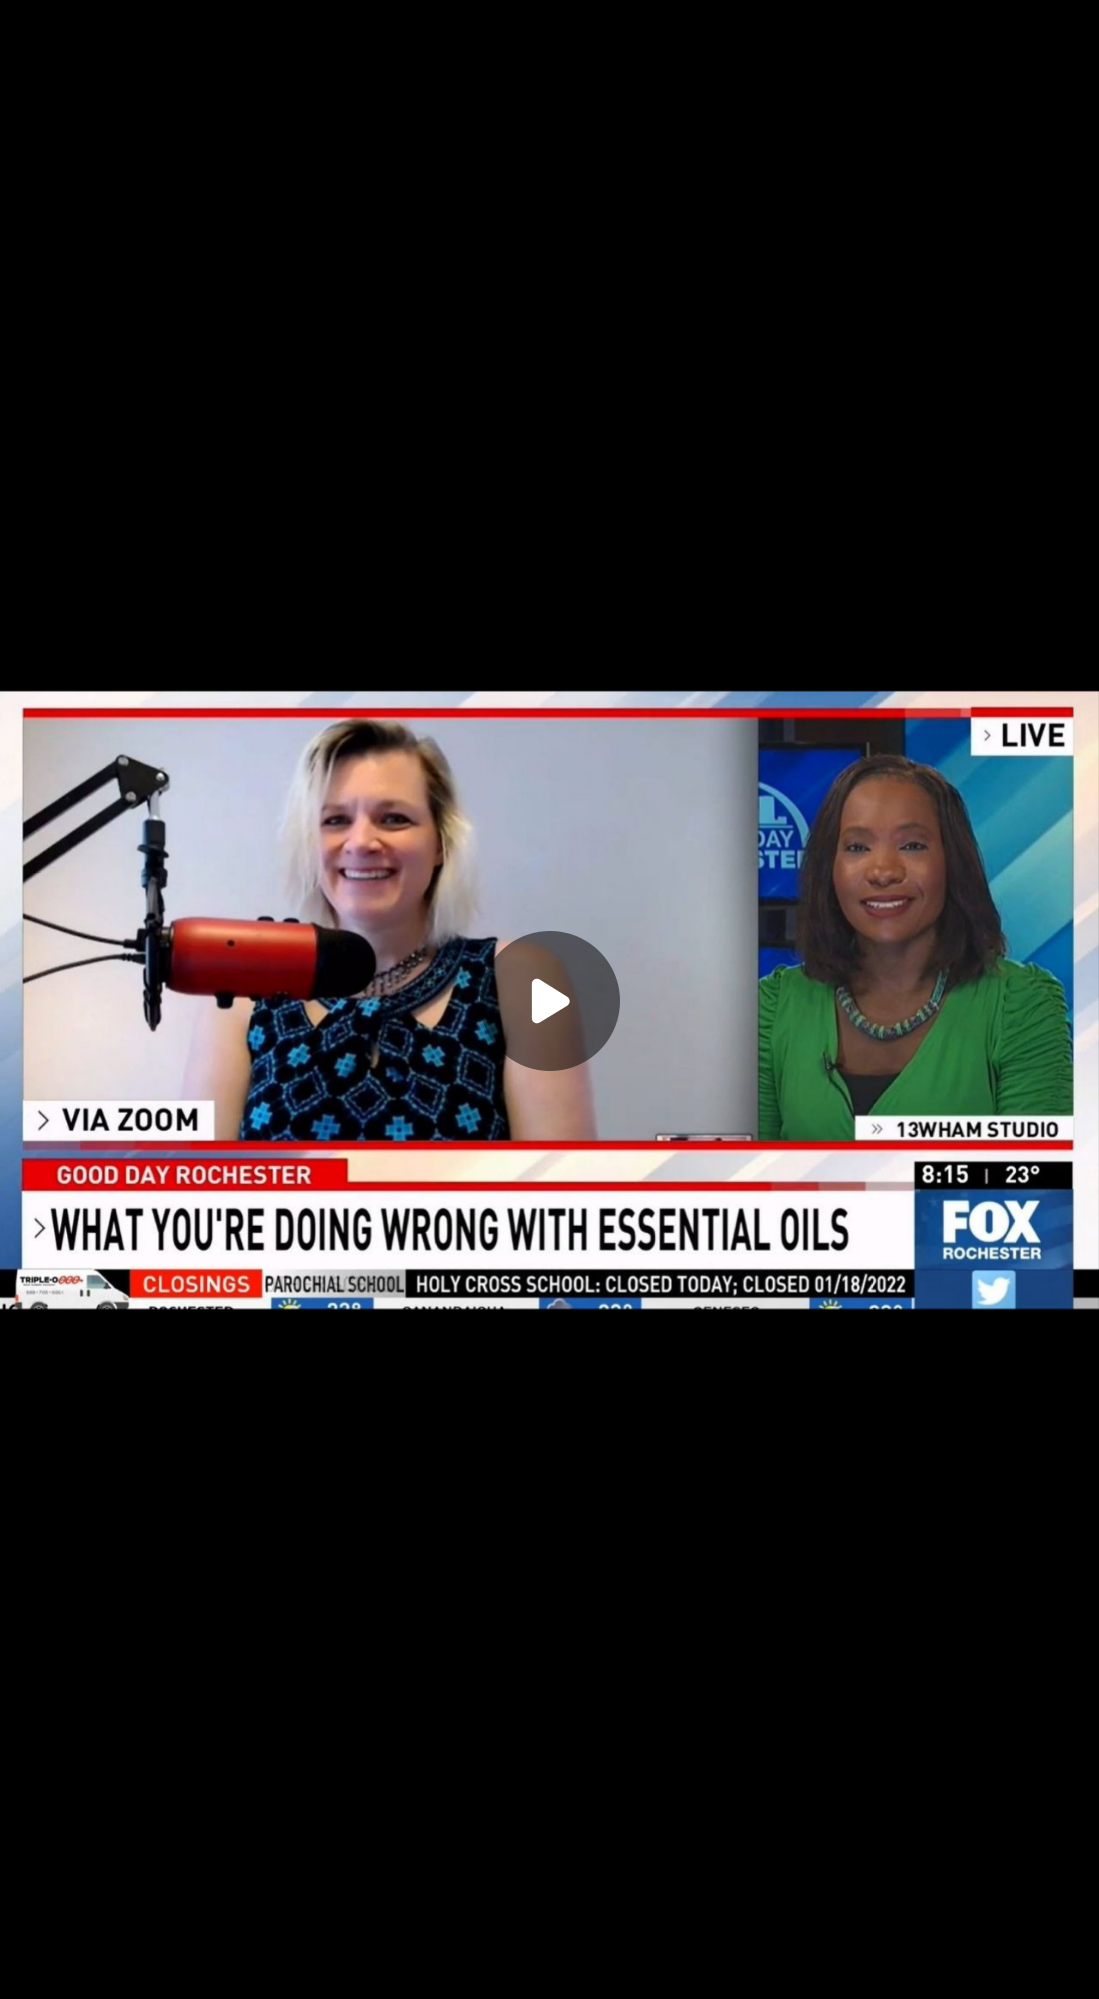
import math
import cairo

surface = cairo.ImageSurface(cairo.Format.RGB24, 1099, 1999)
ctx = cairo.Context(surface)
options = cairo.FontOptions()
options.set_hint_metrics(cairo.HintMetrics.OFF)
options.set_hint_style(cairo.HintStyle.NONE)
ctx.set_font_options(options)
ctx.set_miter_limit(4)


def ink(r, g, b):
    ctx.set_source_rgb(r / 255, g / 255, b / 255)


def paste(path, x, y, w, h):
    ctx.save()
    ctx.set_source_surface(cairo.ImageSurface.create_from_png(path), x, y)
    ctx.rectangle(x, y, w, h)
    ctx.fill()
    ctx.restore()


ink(0, 0, 0)
ctx.paint()
paste("pic1.png", 0, 690, 1099, 620)
ctx.set_source_rgba(0, 0, 0, 0.5)
ctx.arc(550, 1001, 70, 0, 2 * math.pi)
ctx.fill()
paste("pic2.png", 531, 978, 39, 46)
surface.write_to_png("screenshot.png")
